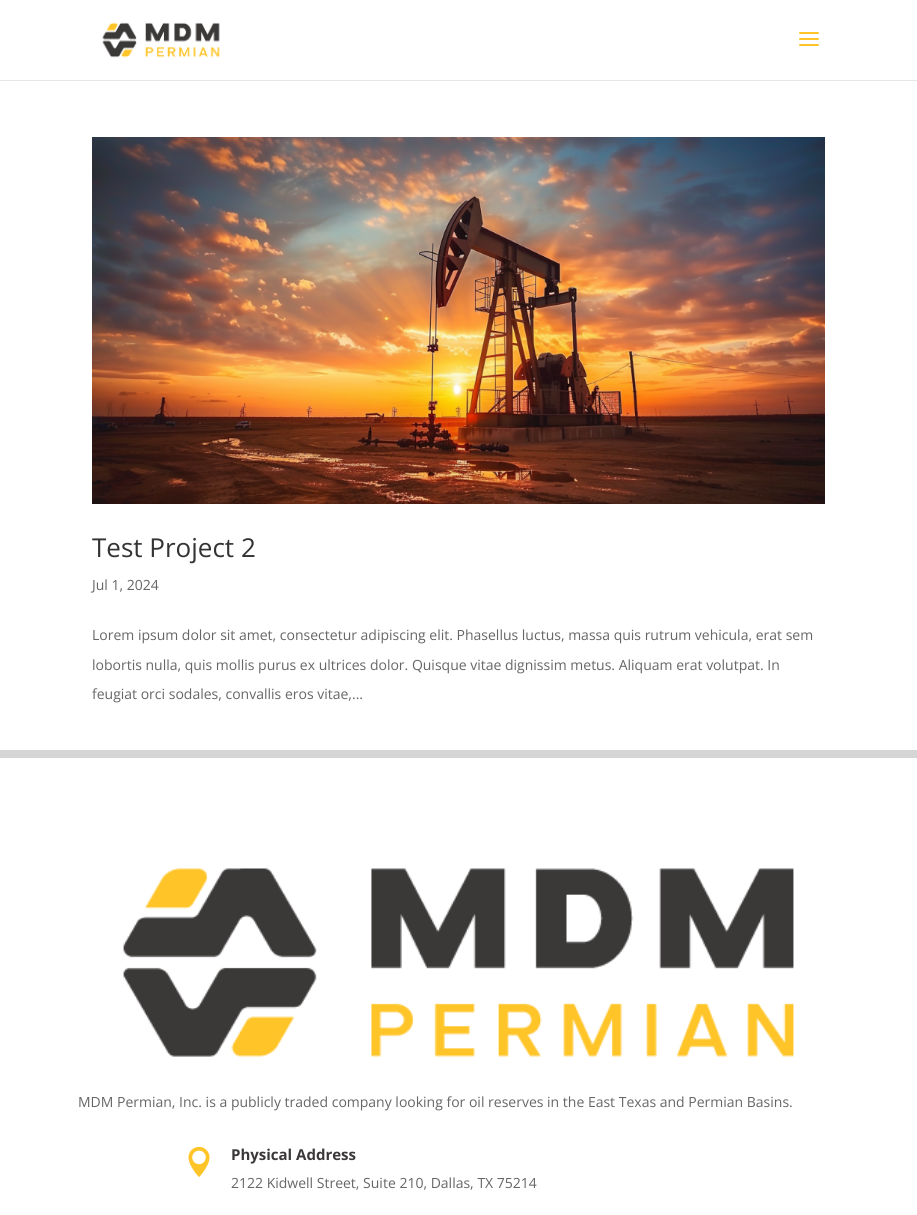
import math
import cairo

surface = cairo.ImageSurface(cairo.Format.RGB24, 917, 1215)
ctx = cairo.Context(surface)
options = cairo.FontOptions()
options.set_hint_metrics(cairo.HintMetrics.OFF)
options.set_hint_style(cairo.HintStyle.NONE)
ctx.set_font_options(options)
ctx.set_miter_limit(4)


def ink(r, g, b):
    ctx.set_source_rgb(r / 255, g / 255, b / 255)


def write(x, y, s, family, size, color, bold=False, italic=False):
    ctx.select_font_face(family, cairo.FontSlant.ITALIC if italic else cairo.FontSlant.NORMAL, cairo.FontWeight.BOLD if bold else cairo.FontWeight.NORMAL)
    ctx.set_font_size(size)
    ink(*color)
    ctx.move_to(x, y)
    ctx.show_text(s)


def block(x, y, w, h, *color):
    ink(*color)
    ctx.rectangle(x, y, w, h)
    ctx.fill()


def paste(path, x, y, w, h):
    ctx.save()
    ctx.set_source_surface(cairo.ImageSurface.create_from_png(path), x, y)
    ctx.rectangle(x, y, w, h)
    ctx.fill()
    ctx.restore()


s1 = dict(family="Open Sans", size=26, color=(51, 51, 51))
s2 = dict(family="Open Sans", size=14, color=(102, 102, 102))
s3 = dict(family="Open Sans", size=15, color=(59, 56, 56), bold=True)

ink(255, 255, 255)
ctx.paint()
block(0, 80, 917, 1, 230, 230, 230)
paste("pic1.png", 102, 22, 118, 36)
paste("pic2.png", 799, 32, 20, 14)
paste("pic3.png", 92, 137, 733, 367)
write(92, 557, "Test Project 2", **s1)
write(92, 590, "Jul 1, 2024", **s2)
write(92, 640, "Lorem ipsum dolor sit amet, consectetur adipiscing elit. Phasellus luctus, massa quis rutrum vehicula, erat sem", **s2)
write(92, 670, "lobortis nulla, quis mollis purus ex ultrices dolor. Quisque vitae dignissim metus. Aliquam erat volutpat. In", **s2)
write(92, 699, "feugiat orci sodales, convallis eros vitae,...", **s2)
block(0, 750, 917, 8, 214, 214, 214)
paste("pic4.png", 123, 868, 671, 189)
write(78, 1107, "MDM Permian, Inc. is a publicly traded company looking for oil reserves in the East Texas and Permian Basins.", **s2)
paste("pic5.png", 188, 1146, 22, 31)
write(231, 1160, "Physical Address", **s3)
write(231, 1188, "2122 Kidwell Street, Suite 210, Dallas, TX 75214", **s2)
surface.write_to_png("screenshot.png")
